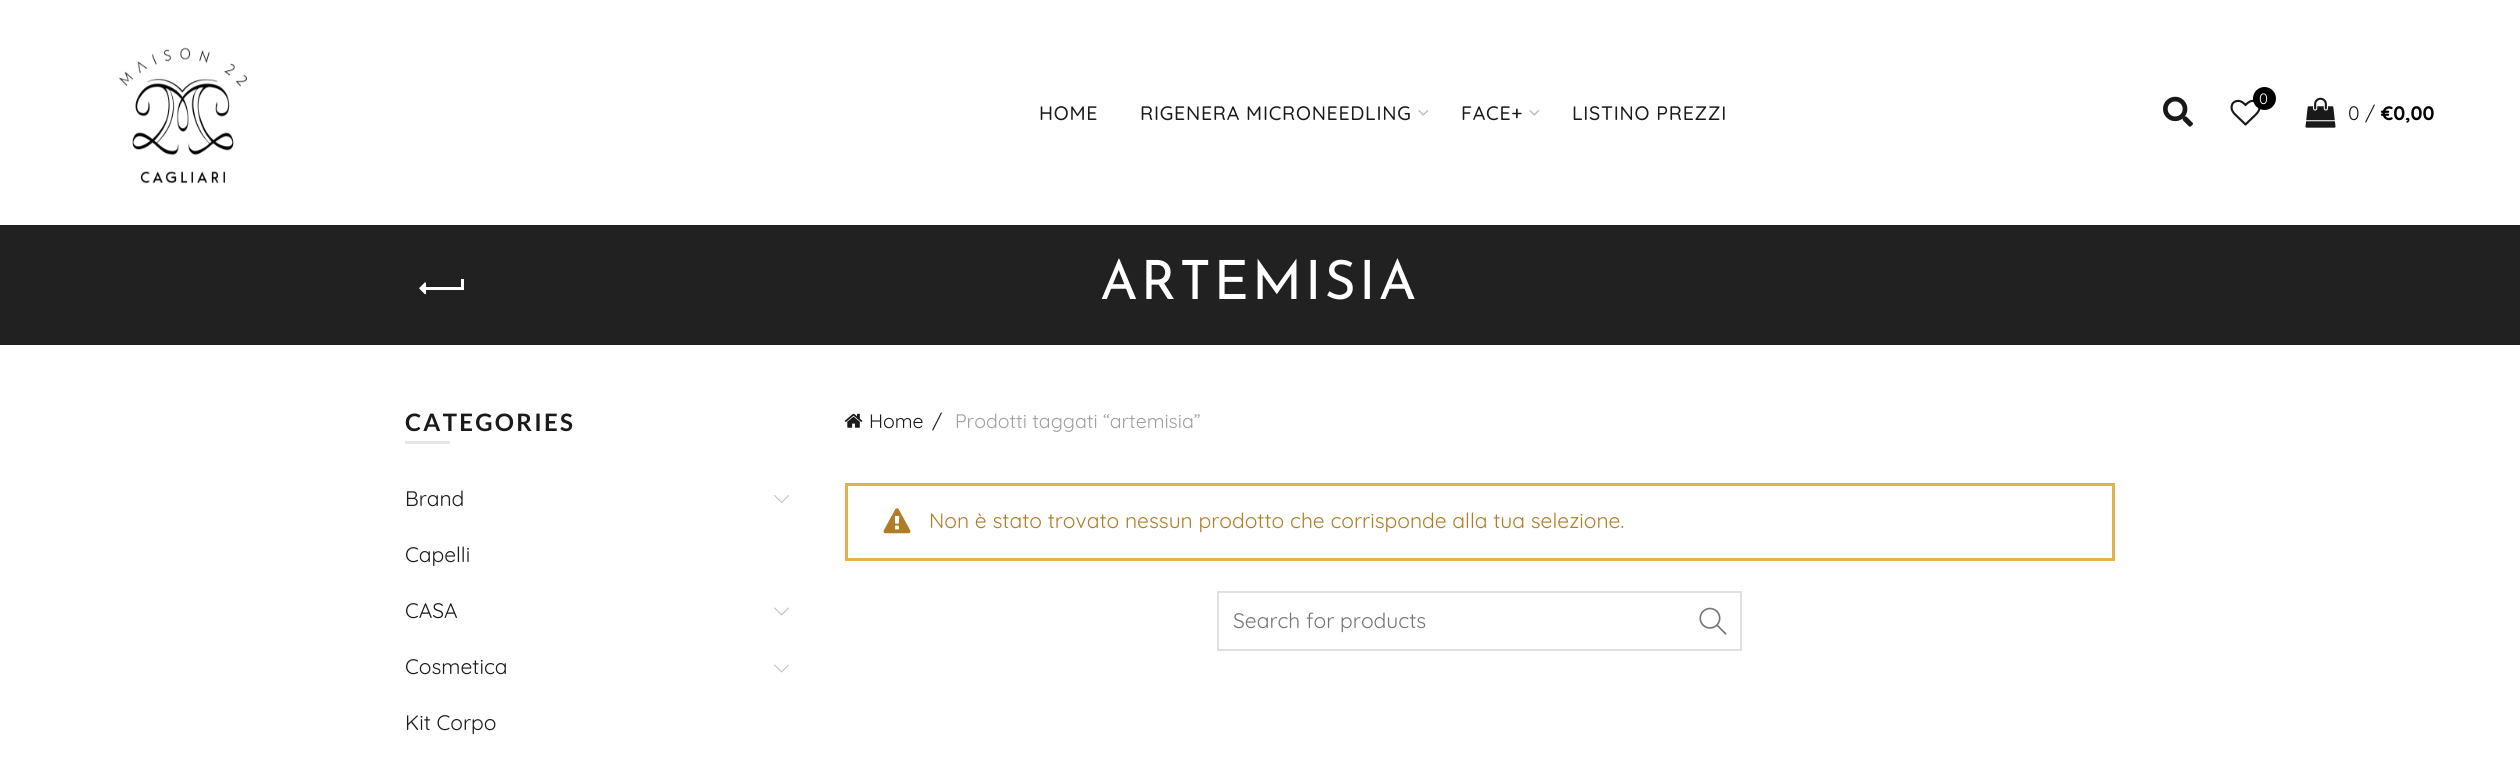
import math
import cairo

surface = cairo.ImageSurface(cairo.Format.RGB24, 2520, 766)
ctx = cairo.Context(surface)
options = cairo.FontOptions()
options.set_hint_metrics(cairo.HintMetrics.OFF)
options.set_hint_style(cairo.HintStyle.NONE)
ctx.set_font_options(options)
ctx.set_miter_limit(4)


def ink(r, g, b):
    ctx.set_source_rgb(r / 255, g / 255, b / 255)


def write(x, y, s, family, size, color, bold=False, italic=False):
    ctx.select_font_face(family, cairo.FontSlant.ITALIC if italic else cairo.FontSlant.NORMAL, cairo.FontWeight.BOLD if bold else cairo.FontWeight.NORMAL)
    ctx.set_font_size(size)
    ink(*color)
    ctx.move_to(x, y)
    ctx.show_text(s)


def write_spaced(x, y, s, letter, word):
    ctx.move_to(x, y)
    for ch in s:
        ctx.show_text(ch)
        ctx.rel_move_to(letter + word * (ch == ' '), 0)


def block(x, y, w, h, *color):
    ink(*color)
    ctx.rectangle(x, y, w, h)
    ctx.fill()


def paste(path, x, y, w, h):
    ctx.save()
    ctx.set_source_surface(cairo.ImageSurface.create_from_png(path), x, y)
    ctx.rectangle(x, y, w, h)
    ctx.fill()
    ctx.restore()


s1 = dict(family="Quicksand", size=15, color=(255, 255, 255))
s2 = dict(family="Quicksand", size=19.5, color=(26, 26, 26))
s3 = dict(family="Quicksand", size=19.5, color=(0, 0, 0), bold=True)
s4 = dict(family="Quicksand", size=21, color=(26, 26, 26))
s5 = dict(family="Quicksand", size=19.5, color=(158, 158, 158))
s6 = dict(family="Quicksand", size=21, color=(175, 125, 39))
s7 = dict(family="Quicksand", size=21, color=(117, 117, 117))

ink(255, 255, 255)
ctx.paint()
paste("pic1.png", 119, 47, 128, 137)
ctx.select_font_face("Quicksand Medium")
ctx.set_font_size(19.5)
ink(26, 26, 26)
write_spaced(1039, 120, "HOME", 0.75, 0)
write_spaced(1140, 120, "RIGENERA MICRONEEDLING", 0.75, 0)
paste("pic2.png", 1418, 110, 11, 6)
write_spaced(1461, 120, "FACE+", 0.75, 0)
paste("pic2.png", 1529, 110, 11, 6)
write_spaced(1572, 120, "LISTINO PREZZI", 0.75, 0)
paste("pic3.png", 2163, 96, 30, 31)
paste("pic4.png", 2230, 99, 31, 27)
ink(0, 0, 0)
ctx.arc(2264.5, 98.5, 11.5, 0, 2 * math.pi)
ctx.fill()
write(2259, 104, "0", **s1)
paste("pic5.png", 2305, 97, 31, 31)
write(2348, 120, "0 /", **s2)
write(2381, 120, "€0,00", **s3)
block(0, 225, 2520, 120, 33, 33, 33)
block(425, 287, 37, 3, 255, 255, 255)
paste("pic6.png", 419, 282, 7, 13)
block(461, 279, 3, 11, 255, 255, 255)
ctx.select_font_face("Josefin Sans")
ctx.set_font_size(54)
write_spaced(1100, 299, "ARTEMISIA", 3, 0)
ctx.select_font_face("Lato", cairo.FontSlant.NORMAL, cairo.FontWeight.BOLD)
ctx.set_font_size(24)
ink(26, 26, 26)
write_spaced(405, 431, "CATEGORIES", 2.25, 0)
block(405, 441, 45, 3, 230, 230, 230)
write(405, 506, "Brand", **s4)
paste("pic7.png", 774, 495, 15, 8)
write(405, 562, "Capelli", **s4)
write(405, 618, "CASA", **s4)
paste("pic8.png", 774, 607, 15, 9)
write(405, 674, "Cosmetica", **s4)
paste("pic8.png", 774, 664, 15, 9)
write(405, 730, "Kit Corpo", **s4)
paste("pic9.png", 844, 413, 19, 15)
write(869, 428, "Home", **s2)
write(932, 428, "/", **s2)
write(955, 428, "Prodotti taggati “artemisia”", **s5)
ctx.rectangle(846.5, 484.5, 1267, 75)
ink(224, 178, 82)
ctx.set_line_width(3)
ctx.stroke()
paste("pic10.png", 883, 508, 28, 26)
write(929, 528, "Non è stato trovato nessun prodotto che corrisponde alla tua selezione.", **s6)
ctx.rectangle(1218, 592, 523, 58)
ink(224, 224, 224)
ctx.set_line_width(2)
ctx.stroke()
write(1233, 628, "Search for products", **s7)
paste("pic11.png", 1699, 607, 28, 28)
surface.write_to_png("screenshot.png")
